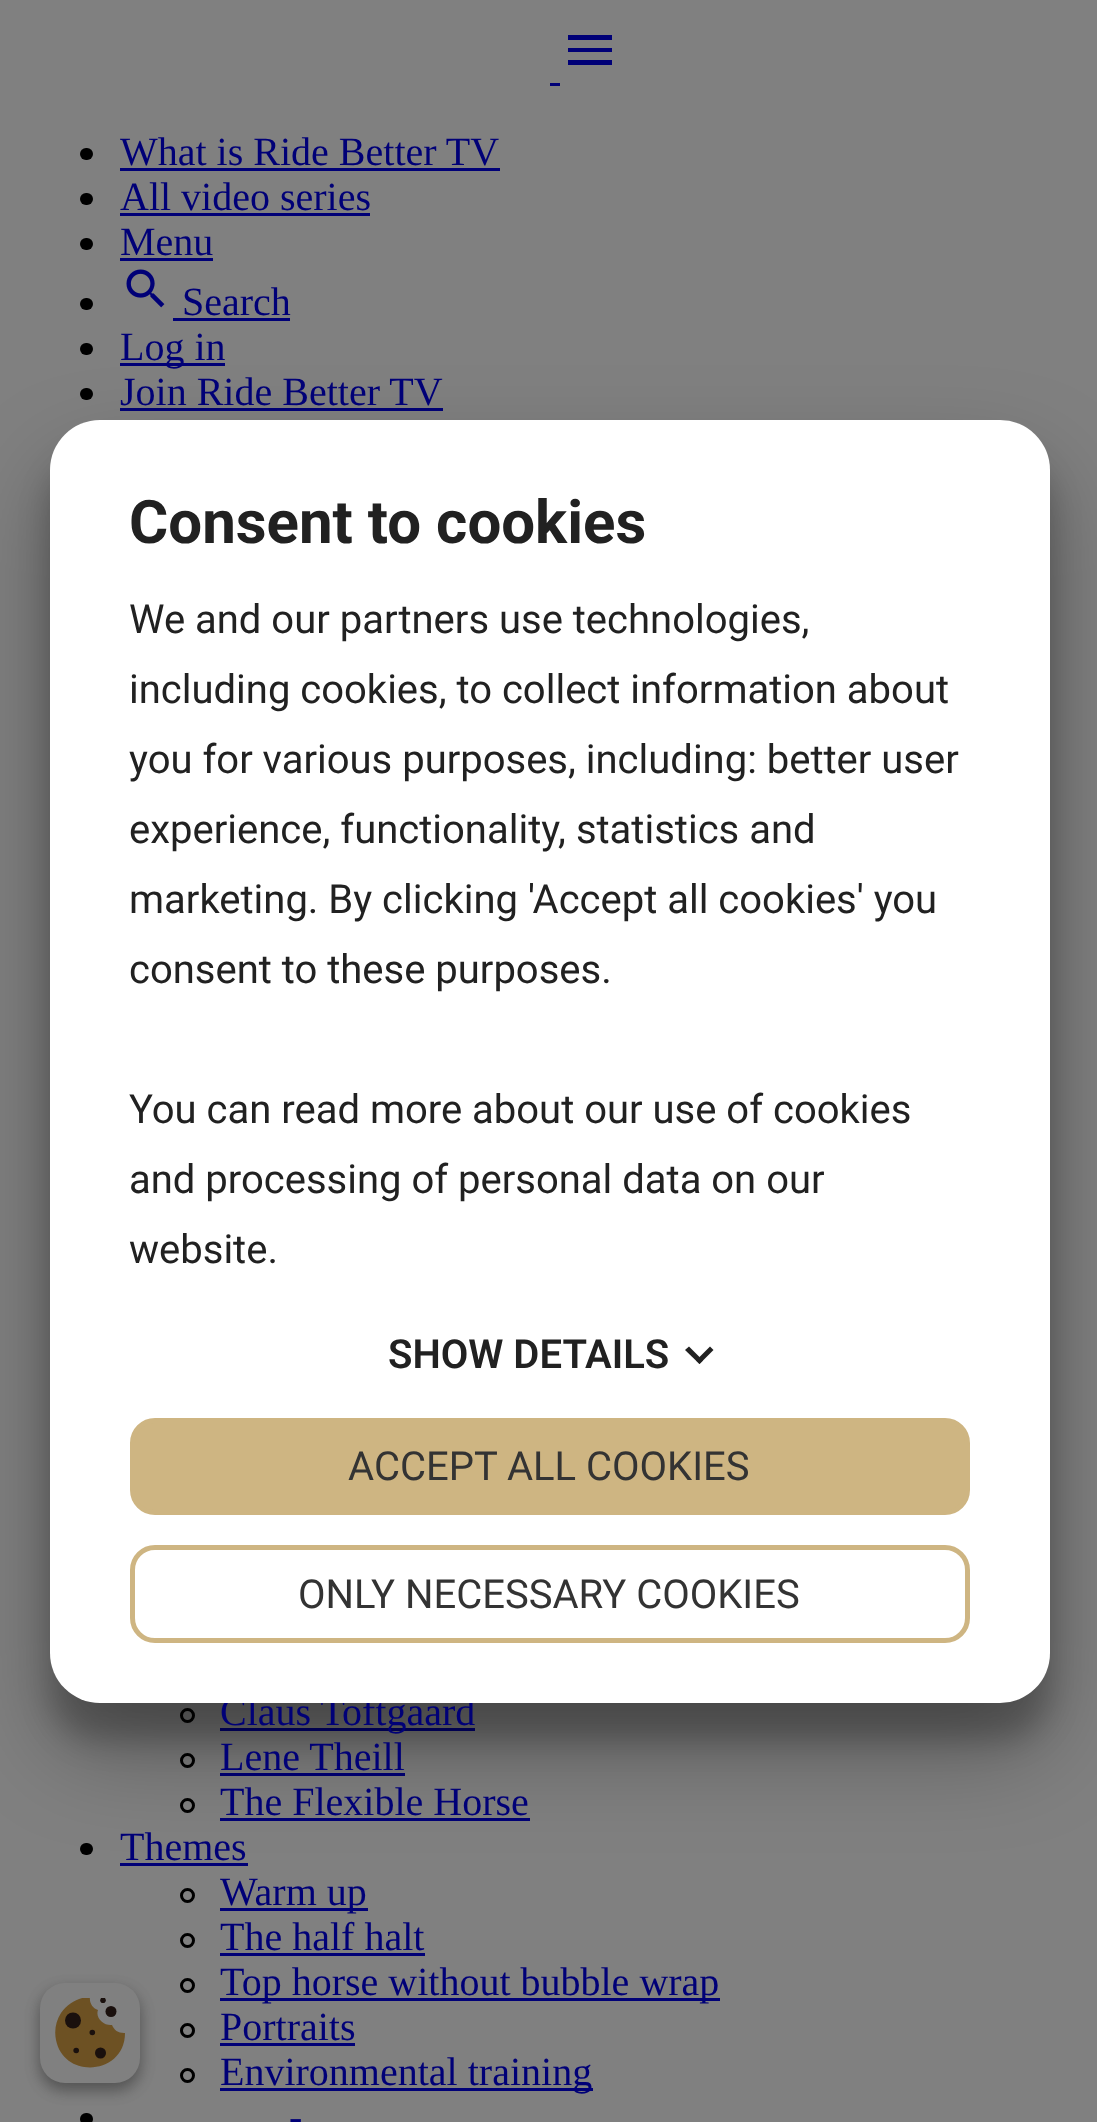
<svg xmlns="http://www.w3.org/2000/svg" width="1097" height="2122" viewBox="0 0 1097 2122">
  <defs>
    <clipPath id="clip1"><path d="M55 1998h70v70H55z"/></clipPath>
  </defs>
  <rect width="100%" height="100%" fill="#808080"/>
  <path d="M568 35H612V40H568ZM568 52V48H612V52ZM568 65V60H612V65Z" fill="#007"/>
  <path d="M550 83h10v3H550z" fill="#007"/>
  <rect x="80" y="148" width="13" height="12" rx="6" fill="#000"/>
  <path d="M120 168h380v3H120z" fill="#007"/>
  <rect x="80" y="193" width="13" height="12" rx="6" fill="#000"/>
  <path d="M120 213h250v3H120z" fill="#007"/>
  <rect x="80" y="238" width="13" height="12" rx="6" fill="#000"/>
  <path d="M120 258h93v3H120z" fill="#007"/>
  <rect x="80" y="298" width="13" height="12" rx="6" fill="#000"/>
  <image x="126" y="269" width="39" height="39" href="img/1.png"/>
  <path d="M173 318h117v3H173z" fill="#007"/>
  <rect x="80" y="343" width="13" height="12" rx="6" fill="#000"/>
  <path d="M120 363h105v3H120z" fill="#007"/>
  <rect x="80" y="388" width="13" height="12" rx="6" fill="#000"/>
  <path d="M120 408h323v3H120z" fill="#007"/>
  <circle cx="187.5" cy="1715.5" r="6" fill="none" stroke="#000" stroke-width="3"/>
  <path d="M220 1728h255v3H220z" fill="#007"/>
  <circle cx="187.5" cy="1760.5" r="6" fill="none" stroke="#000" stroke-width="3"/>
  <path d="M220 1773h185v3H220z" fill="#007"/>
  <circle cx="187.5" cy="1805.5" r="6" fill="none" stroke="#000" stroke-width="3"/>
  <path d="M220 1818h310v3H220z" fill="#007"/>
  <rect x="80" y="1843" width="13" height="12" rx="6" fill="#000"/>
  <path d="M120 1863h128v3H120z" fill="#007"/>
  <circle cx="187.5" cy="1895.5" r="6" fill="none" stroke="#000" stroke-width="3"/>
  <path d="M220 1908h148v3H220z" fill="#007"/>
  <circle cx="187.5" cy="1940.5" r="6" fill="none" stroke="#000" stroke-width="3"/>
  <path d="M220 1953h205v3H220z" fill="#007"/>
  <circle cx="187.5" cy="1985.5" r="6" fill="none" stroke="#000" stroke-width="3"/>
  <path d="M220 1998h500v3H220z" fill="#007"/>
  <circle cx="187.5" cy="2030.5" r="6" fill="none" stroke="#000" stroke-width="3"/>
  <path d="M220 2043h135v3H220z" fill="#007"/>
  <circle cx="187.5" cy="2075.5" r="6" fill="none" stroke="#000" stroke-width="3"/>
  <path d="M220 2088h373v3H220z" fill="#007"/>
  <rect x="80" y="2113" width="13" height="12" rx="6" fill="#000"/>
  <rect x="50" y="458" width="1000" height="1282" rx="50" fill="#00000038" filter="blur(15px)"/>
  <rect x="50" y="468" width="1000" height="1282" rx="50" fill="#0000004d" filter="blur(47.5px)"/>
  <rect x="40" y="1990" width="100" height="100" rx="25" fill="#0000003b" filter="blur(7.5px)"/>
  <rect x="40" y="1990" width="100" height="100" rx="25" fill="#00000029" filter="blur(7.5px)"/>
  <rect x="40" y="1983" width="100" height="100" rx="25" fill="#808080"/>
  <g clip-path="url(#clip1)">
    <path d="M124 2033C118 2033 114 2030 112 2025C104 2026 95 2018 98 2010C93 2009 89 2003 90 1997C79 1997 68 2003 61 2013C56 2021 54 2030 56 2040C64 2080 125 2075 125 2033Z" fill="#6d5123"/>
  </g>
  <circle cx="111" cy="2011.5" r="5.5" fill="#1a100d"/>
  <circle cx="100.5" cy="2053" r="5.5" fill="#1a100d"/>
  <circle cx="73" cy="2020.5" r="8" fill="#1a100d"/>
  <g clip-path="url(#clip1)">
    <circle cx="103" cy="2000.3" r="2.8" fill="#1a100d"/>
  </g>
  <circle cx="92.3" cy="2032.5" r="2.8" fill="#1a100d"/>
  <circle cx="76.2" cy="2050.5" r="2.8" fill="#1a100d"/>
  <g font-family="Liberation Serif" font-size="40" fill="#007">
    <text x="120" y="165">What is Ride Better TV</text>
    <text x="120" y="210">All video series</text>
    <text x="120" y="255">Menu</text>
    <text x="182" y="315">Search</text>
    <text x="120" y="360">Log in</text>
    <text x="120" y="405">Join Ride Better TV</text>
    <text x="220" y="1725">Claus Toftgaard</text>
    <text x="220" y="1770">Lene Theill</text>
    <text x="220" y="1815">The Flexible Horse</text>
    <text x="120" y="1860">Themes</text>
    <text x="220" y="1905">Warm up</text>
    <text x="220" y="1950">The half halt</text>
    <text x="220" y="1995">Top horse without bubble wrap</text>
    <text x="220" y="2040">Portraits</text>
    <text x="220" y="2085">Environmental training</text>
    <text x="289" y="2130">-</text>
  </g>
  <rect x="50" y="420" width="1000" height="1283" rx="50" fill="#fff"/>
  <text x="129" y="543" font-family="Roboto" font-size="60" font-weight="bold" fill="#212121">Consent to cookies</text>
  <g font-family="Roboto" font-size="40" fill="#212121">
    <text x="129" y="633">We and our partners use technologies,</text>
    <text x="129" y="703">including cookies, to collect information about</text>
    <text x="129" y="773">you for various purposes, including: better user</text>
    <text x="129" y="843">experience, functionality, statistics and</text>
    <text x="129" y="913">marketing. By clicking 'Accept all cookies' you</text>
    <text x="129" y="983">consent to these purposes.</text>
    <text x="129" y="1123">You can read more about our use of cookies</text>
    <text x="129" y="1193">and processing of personal data on our</text>
    <text x="129" y="1263">website.</text>
  </g>
  <text x="388" y="1368" font-family="Roboto" font-size="40" font-weight="600" fill="#212121">SHOW DETAILS</text>
  <path d="M710 1346.5L713.5 1350L699.5 1364L696 1360.5Z" fill="#212121"/>
  <path d="M689 1346.5L703 1360.5L699.5 1364L685 1350Z" fill="#212121"/>
  <rect x="132.5" y="1420.5" width="835" height="92" rx="22.5" fill="#ceb582" stroke="#ceb582" stroke-width="5"/>
  <text x="348" y="1480" font-family="Roboto" font-size="40" fill="#333">ACCEPT ALL COOKIES</text>
  <rect x="132.5" y="1547.5" width="835" height="93" rx="22.5" fill="none" stroke="#ceb582" stroke-width="5"/>
  <text x="298" y="1608" font-family="Roboto" font-size="40" fill="#333">ONLY NECESSARY COOKIES</text>
</svg>
